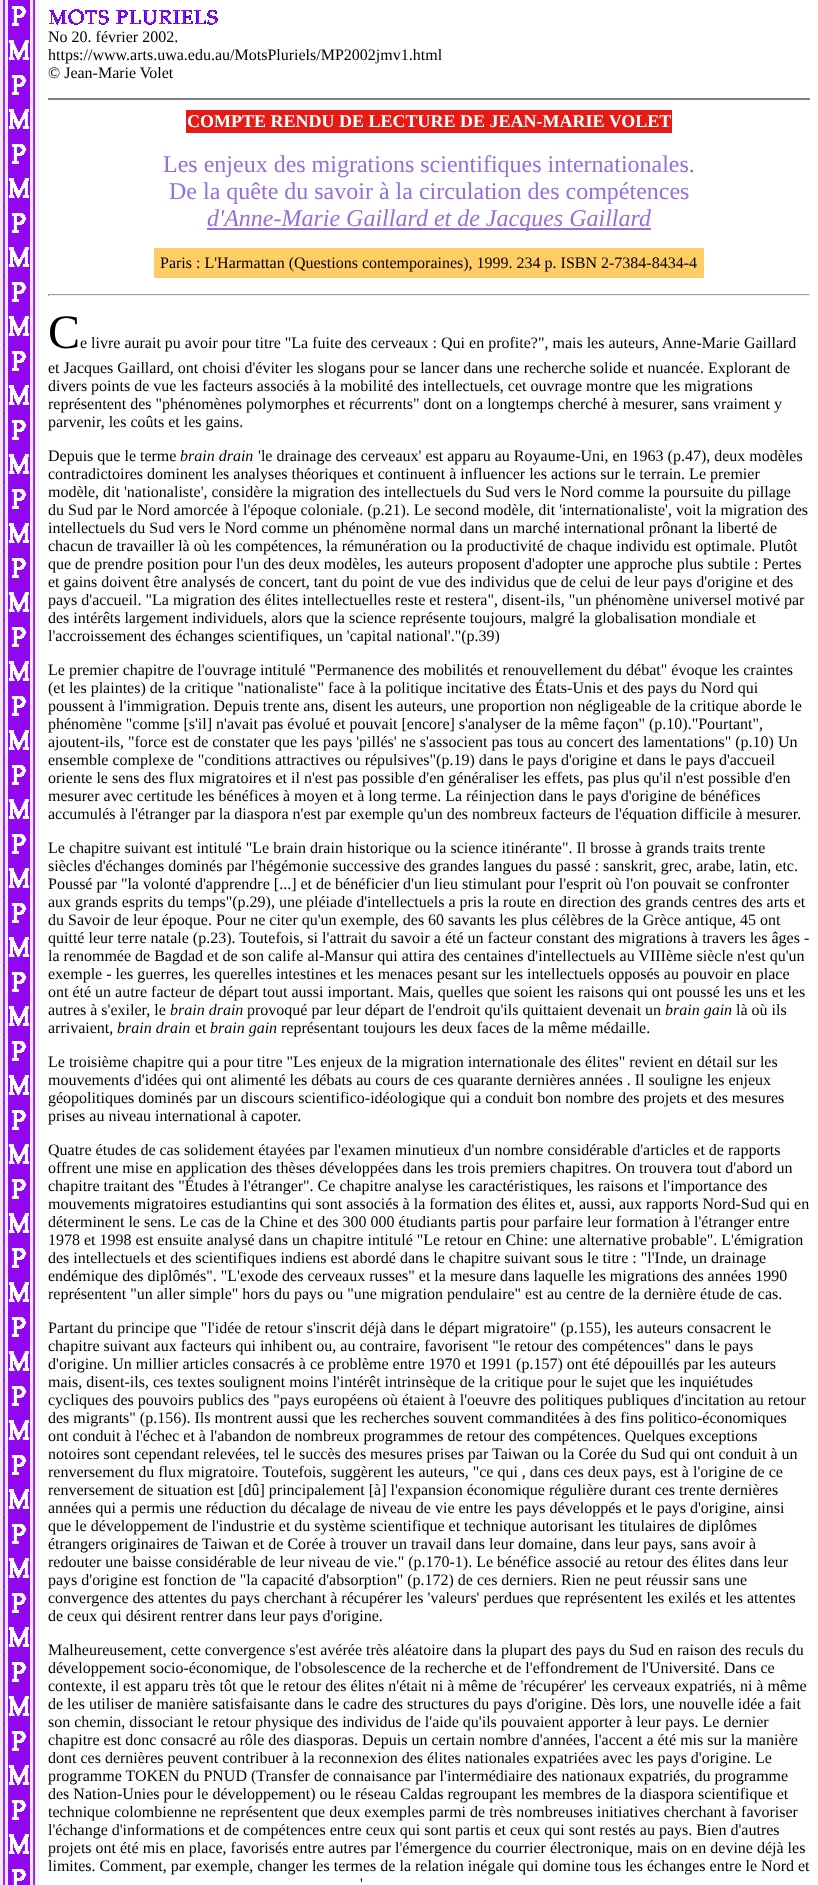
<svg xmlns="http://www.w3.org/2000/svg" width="818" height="1885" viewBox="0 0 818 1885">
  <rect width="100%" height="100%" fill="#fff"/>
  <image x="0" y="0" width="39" height="1885" href="img/1.png"/>
  <image x="49" y="9" width="169" height="16" href="img/2.png"/>
  <path d="M48 98h762v2H48z" fill="#808080"/>
  <path d="M186 110h486v23H186z" fill="#e41b17"/>
  <path d="M207 228h444v2H207z" fill="#9370db"/>
  <path d="M154 248h550v30H154z" fill="#fc6"/>
  <path d="M48 294h762v1H48z" fill="#9f9f9f"/>
  <path d="M809 294h1v2H809z" fill="#eee"/>
  <path d="M48 295h762v1H48z" fill="#eee"/>
  <path d="M48 294h1v2H48z" fill="#9f9f9f"/>
  <g font-family="Liberation Serif" font-size="16" fill="#000">
    <text x="48" y="42">No 20. février 2002.</text>
    <text x="48" y="60">https://www.arts.uwa.edu.au/MotsPluriels/MP2002jmv1.html</text>
    <text x="48" y="78">© Jean-Marie Volet</text>
  </g>
  <text x="187" y="127" font-family="Liberation Serif" font-size="18" font-weight="bold" fill="#fff">COMPTE RENDU DE LECTURE DE JEAN-MARIE VOLET</text>
  <g font-family="Liberation Serif" font-size="24" fill="#9370db">
    <text x="163" y="172">Les enjeux des migrations scientifiques internationales.</text>
    <text x="169" y="199">De la quête du savoir à la circulation des compétences</text>
  </g>
  <text x="207" y="226" font-family="Liberation Serif" font-size="24" font-style="italic" fill="#9370db">d'Anne-Marie Gaillard et de Jacques Gaillard</text>
  <text x="160" y="268" font-family="Liberation Serif" font-size="16" fill="#000">Paris : L'Harmattan (Questions contemporaines), 1999. 234 p. ISBN 2-7384-8434-4</text>
  <text x="48" y="348" font-family="Liberation Serif" font-size="48" fill="#000">C</text>
  <g font-family="Liberation Serif" font-size="16" fill="#000">
    <text x="80" y="348">e livre aurait pu avoir pour titre "La fuite des cerveaux : Qui en profite?", mais les auteurs, Anne-Marie Gaillard</text>
    <text x="48" y="373">et Jacques Gaillard, ont choisi d'éviter les slogans pour se lancer dans une recherche solide et nuancée. Explorant de</text>
    <text x="48" y="391">divers points de vue les facteurs associés à la mobilité des intellectuels, cet ouvrage montre que les migrations</text>
    <text x="48" y="409">représentent des "phénomènes polymorphes et récurrents" dont on a longtemps cherché à mesurer, sans vraiment y</text>
    <text x="48" y="427">parvenir, les coûts et les gains.</text>
    <text x="48" y="461">Depuis que le terme</text>
  </g>
  <text x="180" y="461" font-family="Liberation Serif" font-size="16" font-style="italic" fill="#000">brain drain</text>
  <g font-family="Liberation Serif" font-size="16" fill="#000">
    <text x="258" y="461">'le drainage des cerveaux' est apparu au Royaume-Uni, en 1963 (p.47), deux modèles</text>
    <text x="48" y="479">contradictoires dominent les analyses théoriques et continuent à influencer les actions sur le terrain. Le premier</text>
    <text x="48" y="497">modèle, dit 'nationaliste', considère la migration des intellectuels du Sud vers le Nord comme la poursuite du pillage</text>
    <text x="48" y="515">du Sud par le Nord amorcée à l'époque coloniale. (p.21). Le second modèle, dit 'internationaliste', voit la migration des</text>
    <text x="48" y="533">intellectuels du Sud vers le Nord comme un phénomène normal dans un marché international prônant la liberté de</text>
    <text x="48" y="551">chacun de travailler là où les compétences, la rémunération ou la productivité de chaque individu est optimale. Plutôt</text>
    <text x="48" y="569">que de prendre position pour l'un des deux modèles, les auteurs proposent d'adopter une approche plus subtile : Pertes</text>
    <text x="48" y="587">et gains doivent être analysés de concert, tant du point de vue des individus que de celui de leur pays d'origine et des</text>
    <text x="48" y="605">pays d'accueil. "La migration des élites intellectuelles reste et restera", disent-ils, "un phénomène universel motivé par</text>
    <text x="48" y="623">des intérêts largement individuels, alors que la science représente toujours, malgré la globalisation mondiale et</text>
    <text x="48" y="641">l'accroissement des échanges scientifiques, un 'capital national'."(p.39)</text>
    <text x="48" y="675">Le premier chapitre de l'ouvrage intitulé "Permanence des mobilités et renouvellement du débat" évoque les craintes</text>
    <text x="48" y="693">(et les plaintes) de la critique "nationaliste" face à la politique incitative des États-Unis et des pays du Nord qui</text>
    <text x="48" y="711">poussent à l'immigration. Depuis trente ans, disent les auteurs, une proportion non négligeable de la critique aborde le</text>
    <text x="48" y="729">phénomène "comme [s'il] n'avait pas évolué et pouvait [encore] s'analyser de la même façon" (p.10)."Pourtant",</text>
    <text x="48" y="747">ajoutent-ils, "force est de constater que les pays 'pillés' ne s'associent pas tous au concert des lamentations" (p.10) Un</text>
    <text x="48" y="765">ensemble complexe de "conditions attractives ou répulsives"(p.19) dans le pays d'origine et dans le pays d'accueil</text>
    <text x="48" y="783">oriente le sens des flux migratoires et il n'est pas possible d'en généraliser les effets, pas plus qu'il n'est possible d'en</text>
    <text x="48" y="801">mesurer avec certitude les bénéfices à moyen et à long terme. La réinjection dans le pays d'origine de bénéfices</text>
    <text x="48" y="819">accumulés à l'étranger par la diaspora n'est par exemple qu'un des nombreux facteurs de l'équation difficile à mesurer.</text>
    <text x="48" y="853">Le chapitre suivant est intitulé "Le brain drain historique ou la science itinérante". Il brosse à grands traits trente</text>
    <text x="48" y="871">siècles d'échanges dominés par l'hégémonie successive des grandes langues du passé : sanskrit, grec, arabe, latin, etc.</text>
    <text x="48" y="889">Poussé par "la volonté d'apprendre [...] et de bénéficier d'un lieu stimulant pour l'esprit où l'on pouvait se confronter</text>
    <text x="48" y="907">aux grands esprits du temps"(p.29), une pléiade d'intellectuels a pris la route en direction des grands centres des arts et</text>
    <text x="48" y="925">du Savoir de leur époque. Pour ne citer qu'un exemple, des 60 savants les plus célèbres de la Grèce antique, 45 ont</text>
    <text x="48" y="943">quitté leur terre natale (p.23). Toutefois, si l'attrait du savoir a été un facteur constant des migrations à travers les âges -</text>
    <text x="48" y="961">la renommée de Bagdad et de son calife al-Mansur qui attira des centaines d'intellectuels au VIIIème siècle n'est qu'un</text>
    <text x="48" y="979">exemple - les guerres, les querelles intestines et les menaces pesant sur les intellectuels opposés au pouvoir en place</text>
    <text x="48" y="997">ont été un autre facteur de départ tout aussi important. Mais, quelles que soient les raisons qui ont poussé les uns et les</text>
    <text x="48" y="1015">autres à s'exiler, le</text>
  </g>
  <text x="170" y="1015" font-family="Liberation Serif" font-size="16" font-style="italic" fill="#000">brain drain</text>
  <text x="247" y="1015" font-family="Liberation Serif" font-size="16" fill="#000">provoqué par leur départ de l'endroit qu'ils quittaient devenait un</text>
  <text x="665" y="1015" font-family="Liberation Serif" font-size="16" font-style="italic" fill="#000">brain gain</text>
  <g font-family="Liberation Serif" font-size="16" fill="#000">
    <text x="736" y="1015">là où ils</text>
    <text x="48" y="1033">arrivaient,</text>
  </g>
  <text x="117" y="1033" font-family="Liberation Serif" font-size="16" font-style="italic" fill="#000">brain drain</text>
  <text x="195" y="1033" font-family="Liberation Serif" font-size="16" fill="#000">et</text>
  <text x="210" y="1033" font-family="Liberation Serif" font-size="16" font-style="italic" fill="#000">brain gain</text>
  <g font-family="Liberation Serif" font-size="16" fill="#000">
    <text x="281" y="1033">représentant toujours les deux faces de la même médaille.</text>
    <text x="48" y="1067">Le troisième chapitre qui a pour titre "Les enjeux de la migration internationale des élites" revient en détail sur les</text>
    <text x="48" y="1085">mouvements d'idées qui ont alimenté les débats au cours de ces quarante dernières années . Il souligne les enjeux</text>
    <text x="48" y="1103">géopolitiques dominés par un discours scientifico-idéologique qui a conduit bon nombre des projets et des mesures</text>
    <text x="48" y="1121">prises au niveau international à capoter.</text>
    <text x="48" y="1155">Quatre études de cas solidement étayées par l'examen minutieux d'un nombre considérable d'articles et de rapports</text>
    <text x="48" y="1173">offrent une mise en application des thèses développées dans les trois premiers chapitres. On trouvera tout d'abord un</text>
    <text x="48" y="1191">chapitre traitant des "Études à l'étranger". Ce chapitre analyse les caractéristiques, les raisons et l'importance des</text>
    <text x="48" y="1209">mouvements migratoires estudiantins qui sont associés à la formation des élites et, aussi, aux rapports Nord-Sud qui en</text>
    <text x="48" y="1227">déterminent le sens. Le cas de la Chine et des 300 000 étudiants partis pour parfaire leur formation à l'étranger entre</text>
    <text x="48" y="1245">1978 et 1998 est ensuite analysé dans un chapitre intitulé "Le retour en Chine: une alternative probable". L'émigration</text>
    <text x="48" y="1263">des intellectuels et des scientifiques indiens est abordé dans le chapitre suivant sous le titre : "l'Inde, un drainage</text>
    <text x="48" y="1281">endémique des diplômés". "L'exode des cerveaux russes" et la mesure dans laquelle les migrations des années 1990</text>
    <text x="48" y="1299">représentent "un aller simple" hors du pays ou "une migration pendulaire" est au centre de la dernière étude de cas.</text>
    <text x="48" y="1333">Partant du principe que "l'idée de retour s'inscrit déjà dans le départ migratoire" (p.155), les auteurs consacrent le</text>
    <text x="48" y="1351">chapitre suivant aux facteurs qui inhibent ou, au contraire, favorisent "le retour des compétences" dans le pays</text>
    <text x="48" y="1369">d'origine. Un millier articles consacrés à ce problème entre 1970 et 1991 (p.157) ont été dépouillés par les auteurs</text>
    <text x="48" y="1387">mais, disent-ils, ces textes soulignent moins l'intérêt intrinsèque de la critique pour le sujet que les inquiétudes</text>
    <text x="48" y="1405">cycliques des pouvoirs publics des "pays européens où étaient à l'oeuvre des politiques publiques d'incitation au retour</text>
    <text x="48" y="1423">des migrants" (p.156). Ils montrent aussi que les recherches souvent commanditées à des fins politico-économiques</text>
    <text x="48" y="1441">ont conduit à l'échec et à l'abandon de nombreux programmes de retour des compétences. Quelques exceptions</text>
    <text x="48" y="1459">notoires sont cependant relevées, tel le succès des mesures prises par Taiwan ou la Corée du Sud qui ont conduit à un</text>
    <text x="48" y="1477">renversement du flux migratoire. Toutefois, suggèrent les auteurs, "ce qui , dans ces deux pays, est à l'origine de ce</text>
    <text x="48" y="1495">renversement de situation est [dû] principalement [à] l'expansion économique régulière durant ces trente dernières</text>
    <text x="48" y="1513">années qui a permis une réduction du décalage de niveau de vie entre les pays développés et le pays d'origine, ainsi</text>
    <text x="48" y="1531">que le développement de l'industrie et du système scientifique et technique autorisant les titulaires de diplômes</text>
    <text x="48" y="1549">étrangers originaires de Taiwan et de Corée à trouver un travail dans leur domaine, dans leur pays, sans avoir à</text>
    <text x="48" y="1567">redouter une baisse considérable de leur niveau de vie." (p.170-1). Le bénéfice associé au retour des élites dans leur</text>
    <text x="48" y="1585">pays d'origine est fonction de "la capacité d'absorption" (p.172) de ces derniers. Rien ne peut réussir sans une</text>
    <text x="48" y="1603">convergence des attentes du pays cherchant à récupérer les 'valeurs' perdues que représentent les exilés et les attentes</text>
    <text x="48" y="1621">de ceux qui désirent rentrer dans leur pays d'origine.</text>
    <text x="48" y="1655">Malheureusement, cette convergence s'est avérée très aléatoire dans la plupart des pays du Sud en raison des reculs du</text>
    <text x="48" y="1673">développement socio-économique, de l'obsolescence de la recherche et de l'effondrement de l'Université. Dans ce</text>
    <text x="48" y="1691">contexte, il est apparu très tôt que le retour des élites n'était ni à même de 'récupérer' les cerveaux expatriés, ni à même</text>
    <text x="48" y="1709">de les utiliser de manière satisfaisante dans le cadre des structures du pays d'origine. Dès lors, une nouvelle idée a fait</text>
    <text x="48" y="1727">son chemin, dissociant le retour physique des individus de l'aide qu'ils pouvaient apporter à leur pays. Le dernier</text>
    <text x="48" y="1745">chapitre est donc consacré au rôle des diasporas. Depuis un certain nombre d'années, l'accent a été mis sur la manière</text>
    <text x="48" y="1763">dont ces dernières peuvent contribuer à la reconnexion des élites nationales expatriées avec les pays d'origine. Le</text>
    <text x="48" y="1781">programme TOKEN du PNUD (Transfer de connaisance par l'intermédiaire des nationaux expatriés, du programme</text>
    <text x="48" y="1799">des Nation-Unies pour le développement) ou le réseau Caldas regroupant les membres de la diaspora scientifique et</text>
    <text x="48" y="1817">technique colombienne ne représentent que deux exemples parmi de très nombreuses initiatives cherchant à favoriser</text>
    <text x="48" y="1835">l'échange d'informations et de compétences entre ceux qui sont partis et ceux qui sont restés au pays. Bien d'autres</text>
    <text x="48" y="1853">projets ont été mis en place, favorisés entre autres par l'émergence du courrier électronique, mais on en devine déjà les</text>
    <text x="48" y="1871">limites. Comment, par exemple, changer les termes de la relation inégale qui domine tous les échanges entre le Nord et</text>
    <text x="360" y="1889">'</text>
  </g>
</svg>
